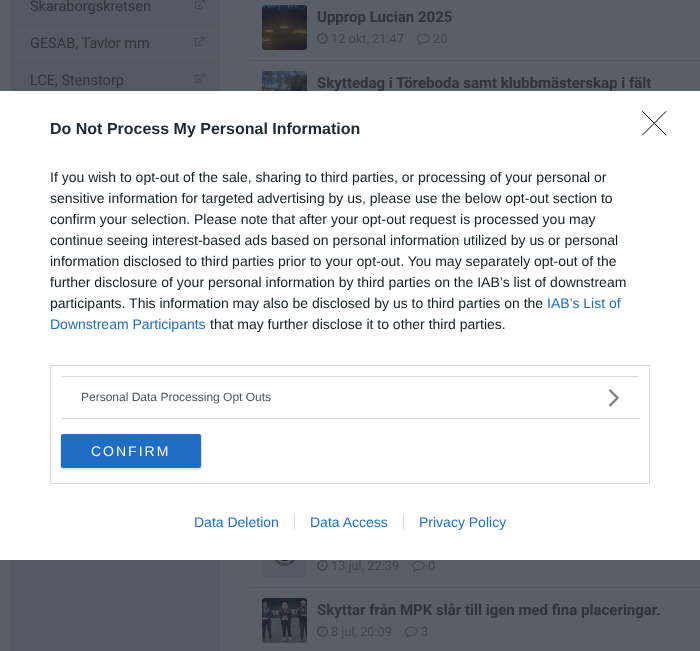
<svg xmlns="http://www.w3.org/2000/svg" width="700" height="651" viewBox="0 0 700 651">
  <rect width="100%" height="100%" fill="#595f67"/>
  <path d="M10 0h210v651H10z" fill="#545a63"/>
  <path d="M10 25h210v1H10z" fill="#50565e"/>
  <image x="195" y="0" width="10" height="9" href="img/1.png"/>
  <path d="M10 62h210v1H10z" fill="#50565e"/>
  <image x="195" y="37" width="10" height="9" href="img/1.png"/>
  <image x="195" y="74" width="10" height="9" href="img/1.png"/>
  <image x="262" y="5" width="45" height="45" href="img/2.png"/>
  <image x="317" y="33" width="11" height="11" href="img/3.png"/>
  <image x="417" y="33" width="13" height="12" href="img/4.png"/>
  <path d="M250 60h450v1H250z" fill="#50565e"/>
  <image x="262" y="71" width="45" height="20" href="img/5.png"/>
  <rect x="262" y="532" width="45" height="45" rx="3" fill="#545a63"/>
  <image x="274" y="560" width="21" height="6" href="img/6.png"/>
  <image x="317" y="560" width="11" height="11" href="img/3.png"/>
  <image x="412" y="560" width="13" height="12" href="img/4.png"/>
  <path d="M250 587h450v1H250z" fill="#50565e"/>
  <image x="262" y="598" width="45" height="45" href="img/7.png"/>
  <image x="317" y="626" width="11" height="11" href="img/3.png"/>
  <image x="405" y="626" width="13" height="12" href="img/4.png"/>
  <g font-family="Roboto" font-size="14.5" fill="#2e343c">
    <text x="30" y="11">Skaraborgskretsen</text>
    <text x="30" y="48">GESAB, Tavlor mm</text>
    <text x="30" y="85">LCE, Stenstorp</text>
  </g>
  <text x="317" y="22" font-family="Roboto" font-size="15" font-weight="bold" fill="#2e343c">Upprop Lucian 2025</text>
  <g font-family="Roboto" font-size="12.75" fill="#3f454d">
    <text x="331" y="43">12 okt, 21:47</text>
    <text x="433" y="43">20</text>
  </g>
  <text x="317" y="88" font-family="Roboto" font-size="15" font-weight="bold" fill="#2e343c">Skyttedag i Töreboda samt klubbmästerskap i fält</text>
  <g font-family="Roboto" font-size="12.75" fill="#3f454d">
    <text x="331" y="570">13 jul, 22:39</text>
    <text x="428" y="570">0</text>
  </g>
  <text x="317" y="615" font-family="Roboto" font-size="15" font-weight="bold" fill="#2e343c">Skyttar från MPK slår till igen med fina placeringar.</text>
  <g font-family="Roboto" font-size="12.75" fill="#3f454d">
    <text x="331" y="636">8 jul, 20:09</text>
    <text x="421" y="636">3</text>
  </g>
  <path d="M0 91h700v469H0z" fill="#fff"/>
  <text x="50" y="134" font-family="Liberation Sans" font-size="16" font-weight="bold" fill="#212934">Do Not Process My Personal Information</text>
  <g font-family="Liberation Sans" font-size="14" fill="#141e23">
    <text x="50" y="182">If you wish to opt-out of the sale, sharing to third parties, or processing of your personal or</text>
    <text x="50" y="203">sensitive information for targeted advertising by us, please use the below opt-out section to</text>
    <text x="50" y="224">confirm your selection. Please note that after your opt-out request is processed you may</text>
    <text x="50" y="245">continue seeing interest-based ads based on personal information utilized by us or personal</text>
    <text x="50" y="266">information disclosed to third parties prior to your opt-out. You may separately opt-out of the</text>
    <text x="50" y="287">further disclosure of your personal information by third parties on the IAB’s list of downstream</text>
    <text x="50" y="308">participants. This information may also be disclosed by us to third parties on the</text>
  </g>
  <g font-family="Liberation Sans" font-size="14" fill="#206dc5">
    <text x="547" y="308">IAB’s List of</text>
    <text x="50" y="329">Downstream Participants</text>
  </g>
  <text x="210" y="329" font-family="Liberation Sans" font-size="14" fill="#141e23">that may further disclose it to other third parties.</text>
  <path d="M50.5 365.5h599v118H50.5z" fill="none" stroke="#d8d8d8"/>
  <path d="M61 376h578v1H61z" fill="#ddd"/>
  <path d="M61 418h578v1H61z" fill="#d8d8d8"/>
  <text x="81" y="401" font-family="Liberation Sans" font-size="12" fill="#4d545d">Personal Data Processing Opt Outs</text>
  <image x="608" y="389" width="11" height="18" href="img/8.png"/>
  <rect x="60" y="434" width="142" height="36" rx="3" fill="#0000001a" filter="blur(0.5px)"/>
  <rect x="61" y="434" width="140" height="34" rx="2" fill="#206dc5"/>
  <text x="91" y="456" font-family="Liberation Sans" font-size="14" letter-spacing="2" fill="#fff">CONFIRM</text>
  <path d="M642.5 111.5L666 135M666 111.5L642.5 135" fill="none" stroke="#000" stroke-linecap="round" stroke-linejoin="round"/>
  <g font-family="Liberation Sans" font-size="14" fill="#206dc5">
    <text x="194" y="527">Data Deletion</text>
    <text x="310" y="527">Data Access</text>
  </g>
  <path d="M294 514h1v16H294z" fill="#d8d8d8"/>
  <text x="419" y="527" font-family="Liberation Sans" font-size="14" fill="#206dc5">Privacy Policy</text>
  <path d="M403 514h1v16H403z" fill="#d8d8d8"/>
</svg>
